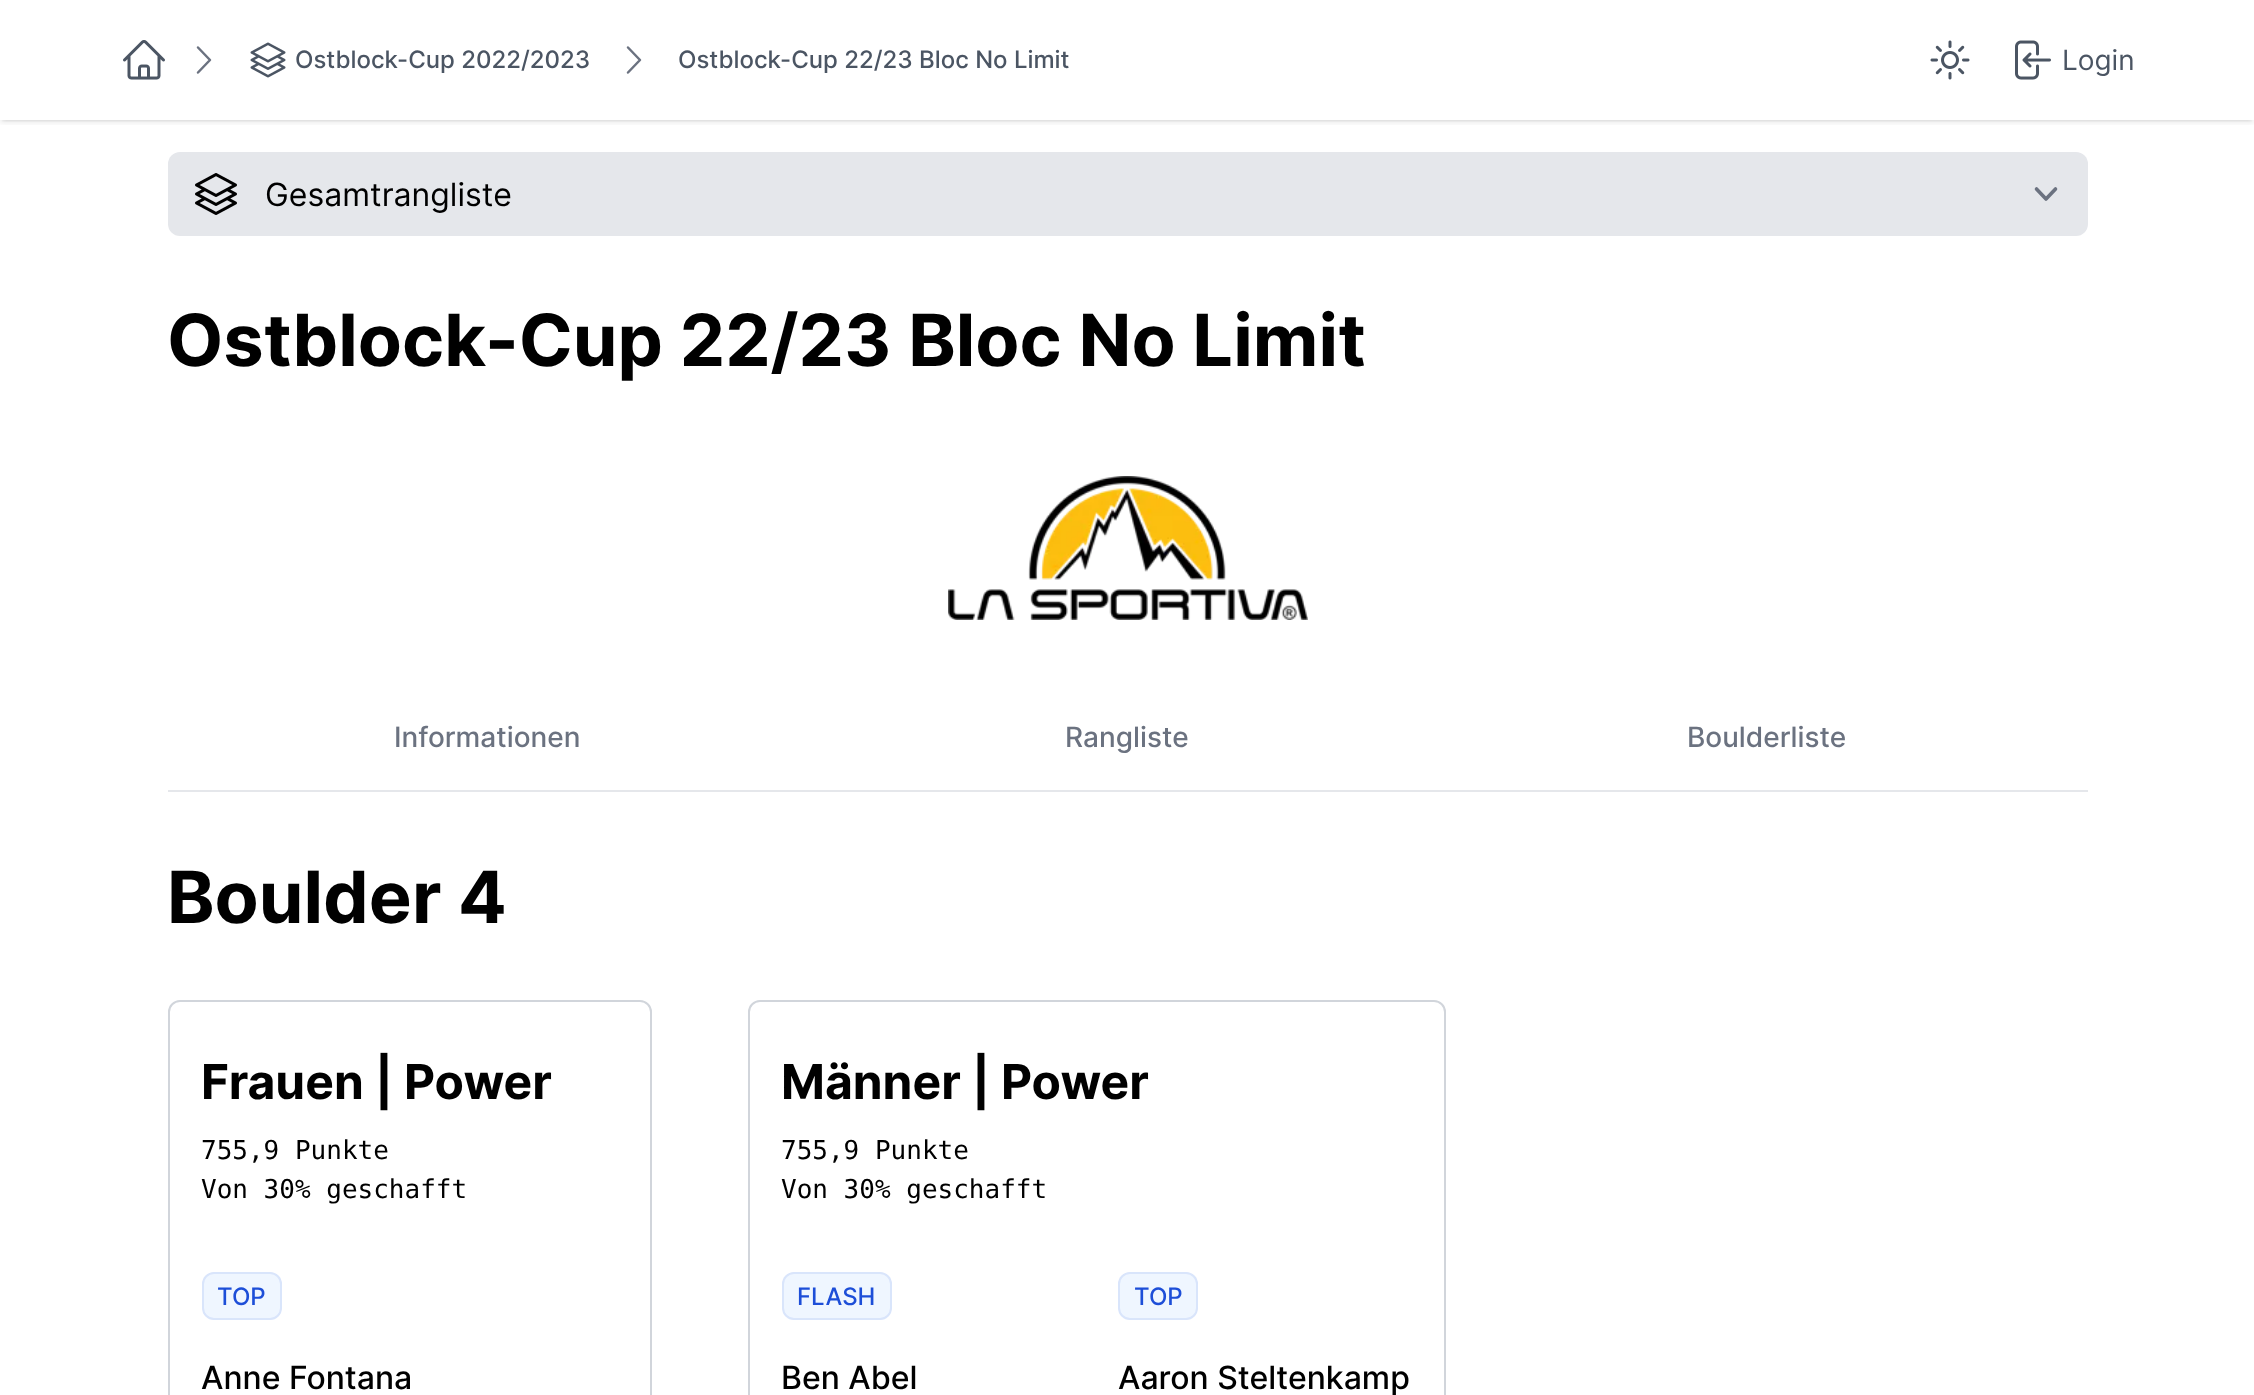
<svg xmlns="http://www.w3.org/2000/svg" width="2254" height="1395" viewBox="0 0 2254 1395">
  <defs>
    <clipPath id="clip1"><path d="M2 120h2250v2H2z"/></clipPath>
    <clipPath id="clip2"><path d="M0 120h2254v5H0z"/></clipPath>
  </defs>
  <rect width="100%" height="100%" fill="#fff"/>
  <g clip-path="url(#clip1)">
    <path d="M2 4h2250v116H2z" fill="#0000001a" filter="blur(2px)"/>
  </g>
  <g clip-path="url(#clip2)">
    <path d="M0 2h2254v120H0z" fill="#0000001a" filter="blur(3px)"/>
  </g>
  <image x="123" y="40" width="42" height="40" href="img/1.png"/>
  <path d="M198 47.5L210 60L198 72.5" fill="none" stroke="#6b7280" stroke-width="2.5" stroke-linecap="round" stroke-linejoin="round"/>
  <image x="250" y="42" width="36" height="36" href="img/2.png"/>
  <path d="M628 47.5L640 60L628 72.5" fill="none" stroke="#6b7280" stroke-width="2.5" stroke-linecap="round" stroke-linejoin="round"/>
  <image x="1930" y="40" width="40" height="40" href="img/3.png"/>
  <image x="2015" y="40" width="36" height="40" href="img/4.png"/>
  <rect x="168" y="152" width="1920" height="84" rx="12" fill="#e5e7eb"/>
  <image x="195" y="173" width="42" height="42" href="img/5.png"/>
  <path d="M2036.5 189L2046 199L2055.5 189" fill="none" stroke="#6b7280" stroke-width="3.6" stroke-linecap="round" stroke-linejoin="round"/>
  <image x="948" y="476" width="360" height="144" href="img/6.png"/>
  <path d="M168 790h1920v2H168z" fill="#e5e7eb"/>
  <rect x="169" y="1001" width="482" height="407" rx="11" fill="none" stroke="#d1d5db" stroke-width="2"/>
  <rect x="202" y="1272" width="80" height="48" rx="12" fill="#eff6ff"/>
  <rect x="203" y="1273" width="78" height="46" rx="11" fill="none" stroke="#1d4ed81a" stroke-width="2"/>
  <rect x="749" y="1001" width="696" height="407" rx="11" fill="none" stroke="#d1d5db" stroke-width="2"/>
  <rect x="782" y="1272" width="110" height="48" rx="12" fill="#eff6ff"/>
  <rect x="783" y="1273" width="108" height="46" rx="11" fill="none" stroke="#1d4ed81a" stroke-width="2"/>
  <rect x="1118" y="1272" width="80" height="48" rx="12" fill="#eff6ff"/>
  <rect x="1119" y="1273" width="78" height="46" rx="11" fill="none" stroke="#1d4ed81a" stroke-width="2"/>
  <g font-family="Inter" font-size="24" font-weight="500" fill="#4b5563">
    <text x="295" y="68">Ostblock-Cup 2022/2023</text>
    <text x="678" y="68">Ostblock-Cup 22/23 Bloc No Limit</text>
  </g>
  <text x="2062" y="70" font-family="Inter" font-size="28" fill="#4b5563">Login</text>
  <text x="265" y="206" font-family="Inter" font-size="32" fill="#000">Gesamtrangliste</text>
  <text x="167" y="366" font-family="Inter" font-size="72" font-weight="bold" fill="#000">Ostblock-Cup 22/23 Bloc No Limit</text>
  <g font-family="Inter" font-size="28" font-weight="500" fill="#6b7280">
    <text x="394" y="747">Informationen</text>
    <text x="1065" y="747">Rangliste</text>
    <text x="1687" y="747">Boulderliste</text>
  </g>
  <text x="167" y="923" font-family="Inter" font-size="72" font-weight="bold" fill="#000">Boulder 4</text>
  <text x="201" y="1099" font-family="Inter" font-size="48" font-weight="bold" fill="#000">Frauen | Power</text>
  <g font-family="DejaVu Sans Mono" font-size="26" fill="#000">
    <text x="201" y="1159">755,9 Punkte</text>
    <text x="201" y="1198">Von 30% geschafft</text>
  </g>
  <text x="217" y="1305" font-family="Inter" font-size="24" font-weight="500" fill="#1d4ed8">TOP</text>
  <text x="201" y="1389" font-family="Inter" font-size="32" font-weight="500" fill="#000">Anne Fontana</text>
  <text x="781" y="1099" font-family="Inter" font-size="48" font-weight="bold" fill="#000">Männer | Power</text>
  <g font-family="DejaVu Sans Mono" font-size="26" fill="#000">
    <text x="781" y="1159">755,9 Punkte</text>
    <text x="781" y="1198">Von 30% geschafft</text>
  </g>
  <text x="797" y="1305" font-family="Inter" font-size="24" font-weight="500" fill="#1d4ed8">FLASH</text>
  <text x="781" y="1389" font-family="Inter" font-size="32" font-weight="500" fill="#000">Ben Abel</text>
  <text x="1134" y="1305" font-family="Inter" font-size="24" font-weight="500" fill="#1d4ed8">TOP</text>
  <text x="1118" y="1389" font-family="Inter" font-size="32" font-weight="500" fill="#000">Aaron Steltenkamp</text>
</svg>
